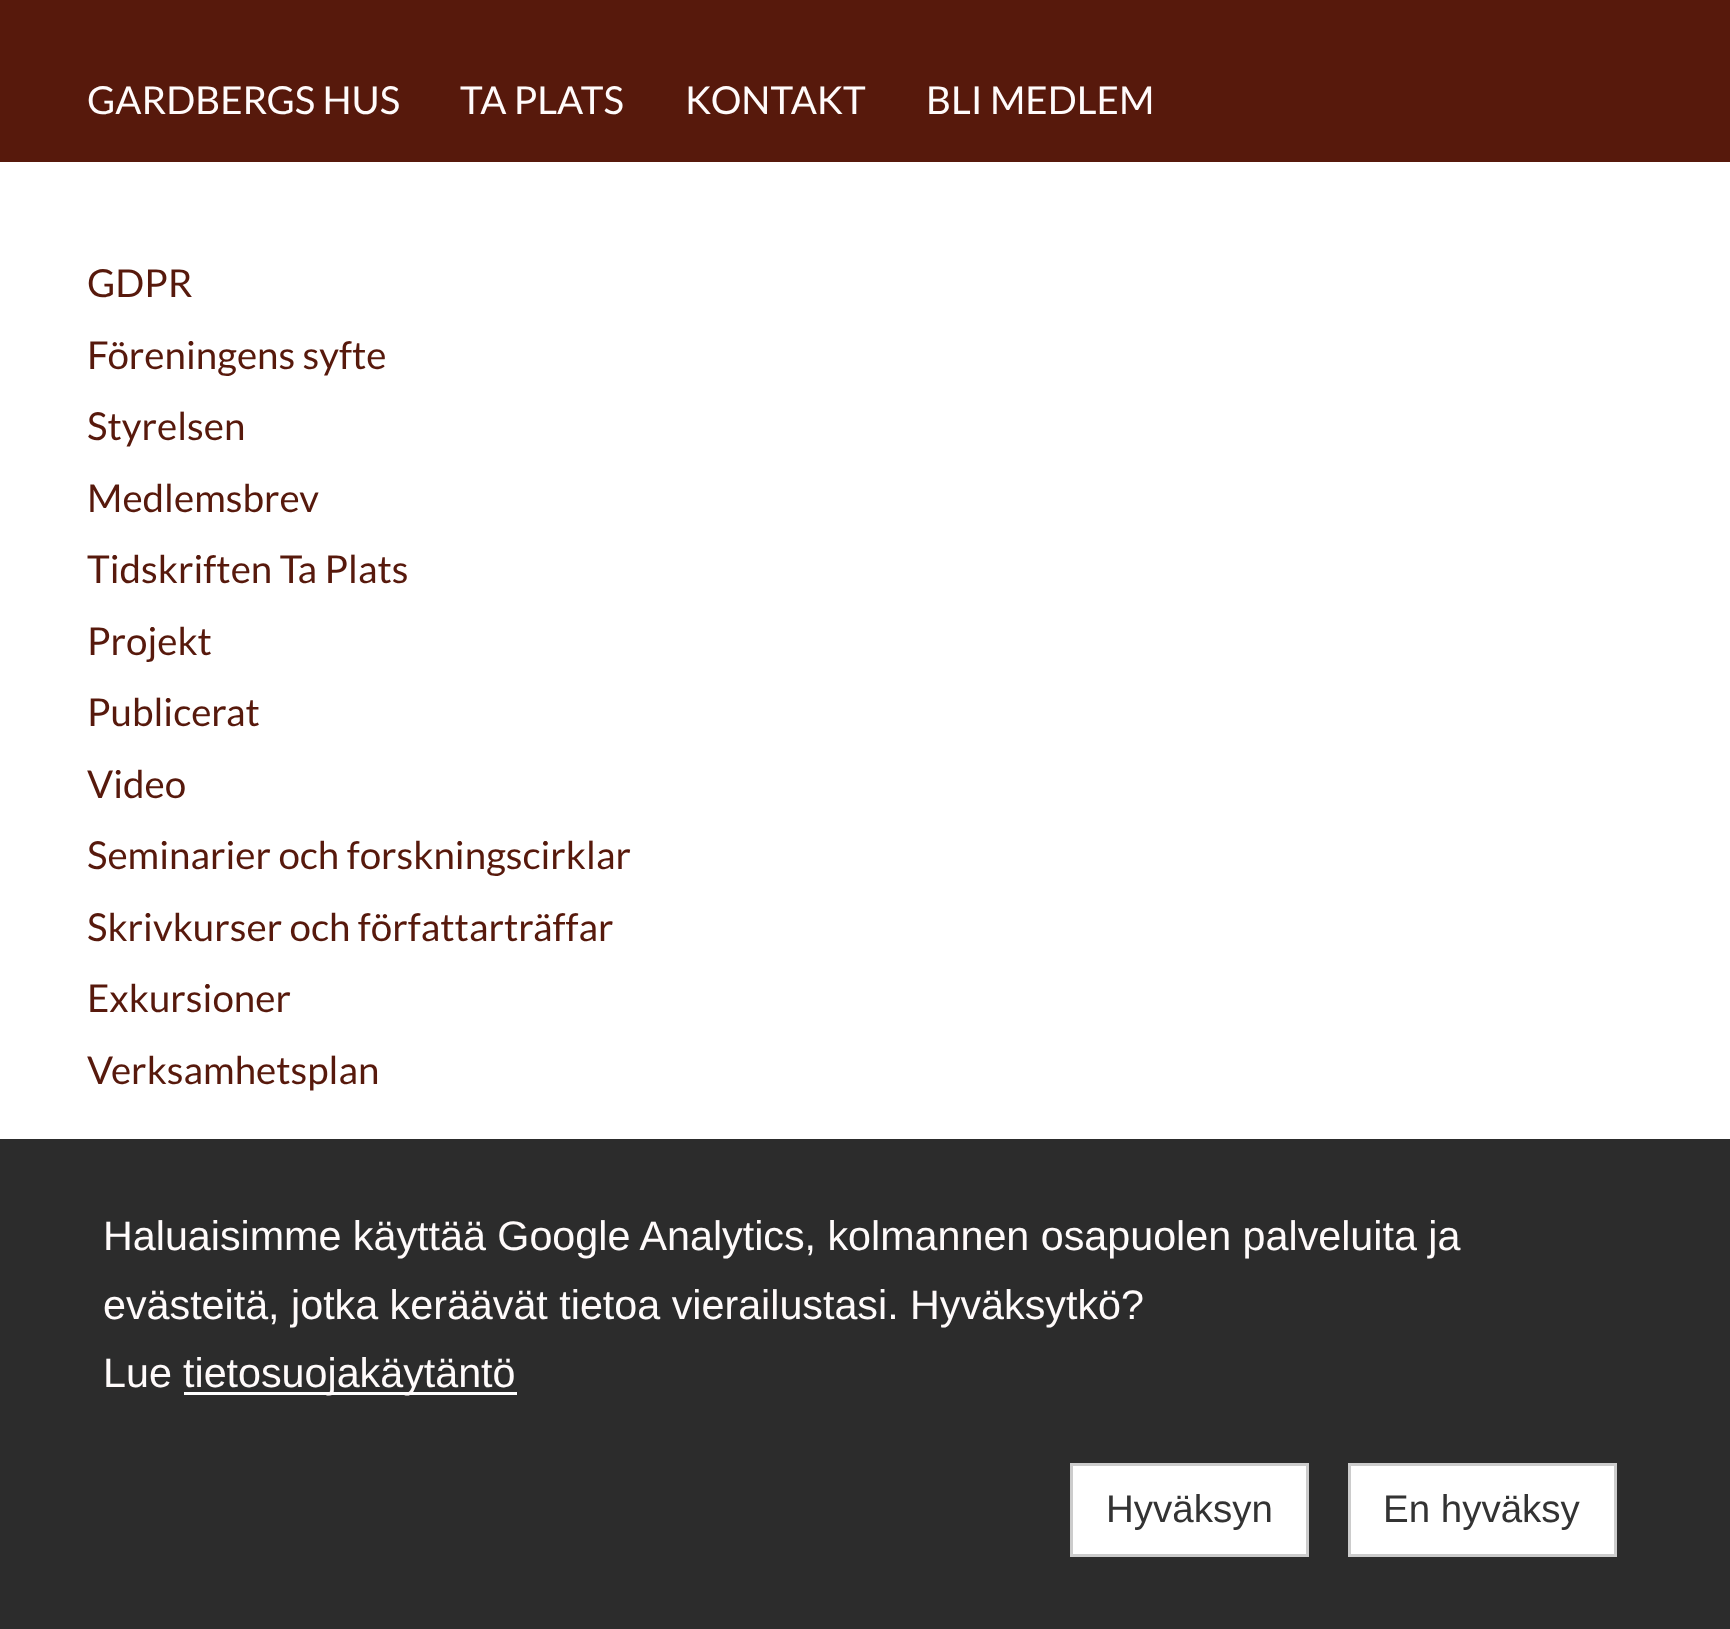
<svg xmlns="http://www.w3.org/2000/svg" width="1730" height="1629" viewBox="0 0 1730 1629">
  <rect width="100%" height="100%" fill="#57190c"/>
  <path d="M0 162h1730v977H0z" fill="#fff"/>
  <path d="M0 1139h1730v490H0z" fill="#2c2c2c"/>
  <path d="M184 1392h333v3H184z" fill="#fff"/>
  <path d="M1071.5 1464.5h236v91H1071.5z" fill="#fff" stroke="#ccc" stroke-width="3"/>
  <path d="M1349.5 1464.5h266v91H1349.5z" fill="#fff" stroke="#ccc" stroke-width="3"/>
  <g font-family="Lato" font-size="38.5" fill="#fffbfb">
    <text x="87" y="114">GARDBERGS HUS</text>
    <text x="460" y="114">TA PLATS</text>
    <text x="685" y="114">KONTAKT</text>
    <text x="926" y="114">BLI MEDLEM</text>
  </g>
  <g font-family="Lato" font-size="38.5" fill="#57190c">
    <text x="87" y="297">GDPR</text>
    <text x="87" y="369">Föreningens syfte</text>
    <text x="87" y="440">Styrelsen</text>
    <text x="87" y="512">Medlemsbrev</text>
    <text x="87" y="583">Tidskriften Ta Plats</text>
    <text x="87" y="655">Projekt</text>
    <text x="87" y="726">Publicerat</text>
    <text x="87" y="798">Video</text>
    <text x="87" y="869">Seminarier och forskningscirklar</text>
    <text x="87" y="941">Skrivkurser och författarträffar</text>
    <text x="87" y="1012">Exkursioner</text>
    <text x="87" y="1084">Verksamhetsplan</text>
  </g>
  <g font-family="Liberation Sans" font-size="41.25" fill="#fffbfb">
    <text x="103" y="1250">Haluaisimme käyttää Google Analytics, kolmannen osapuolen palveluita ja</text>
    <text x="103" y="1319">evästeitä, jotka keräävät tietoa vierailustasi. Hyväksytkö?</text>
    <text x="103" y="1387">Lue</text>
    <text x="183" y="1387">tietosuojakäytäntö</text>
  </g>
  <g font-family="Liberation Sans" font-size="38.5" fill="#333">
    <text x="1106" y="1522">Hyväksyn</text>
    <text x="1383" y="1522">En hyväksy</text>
  </g>
</svg>
